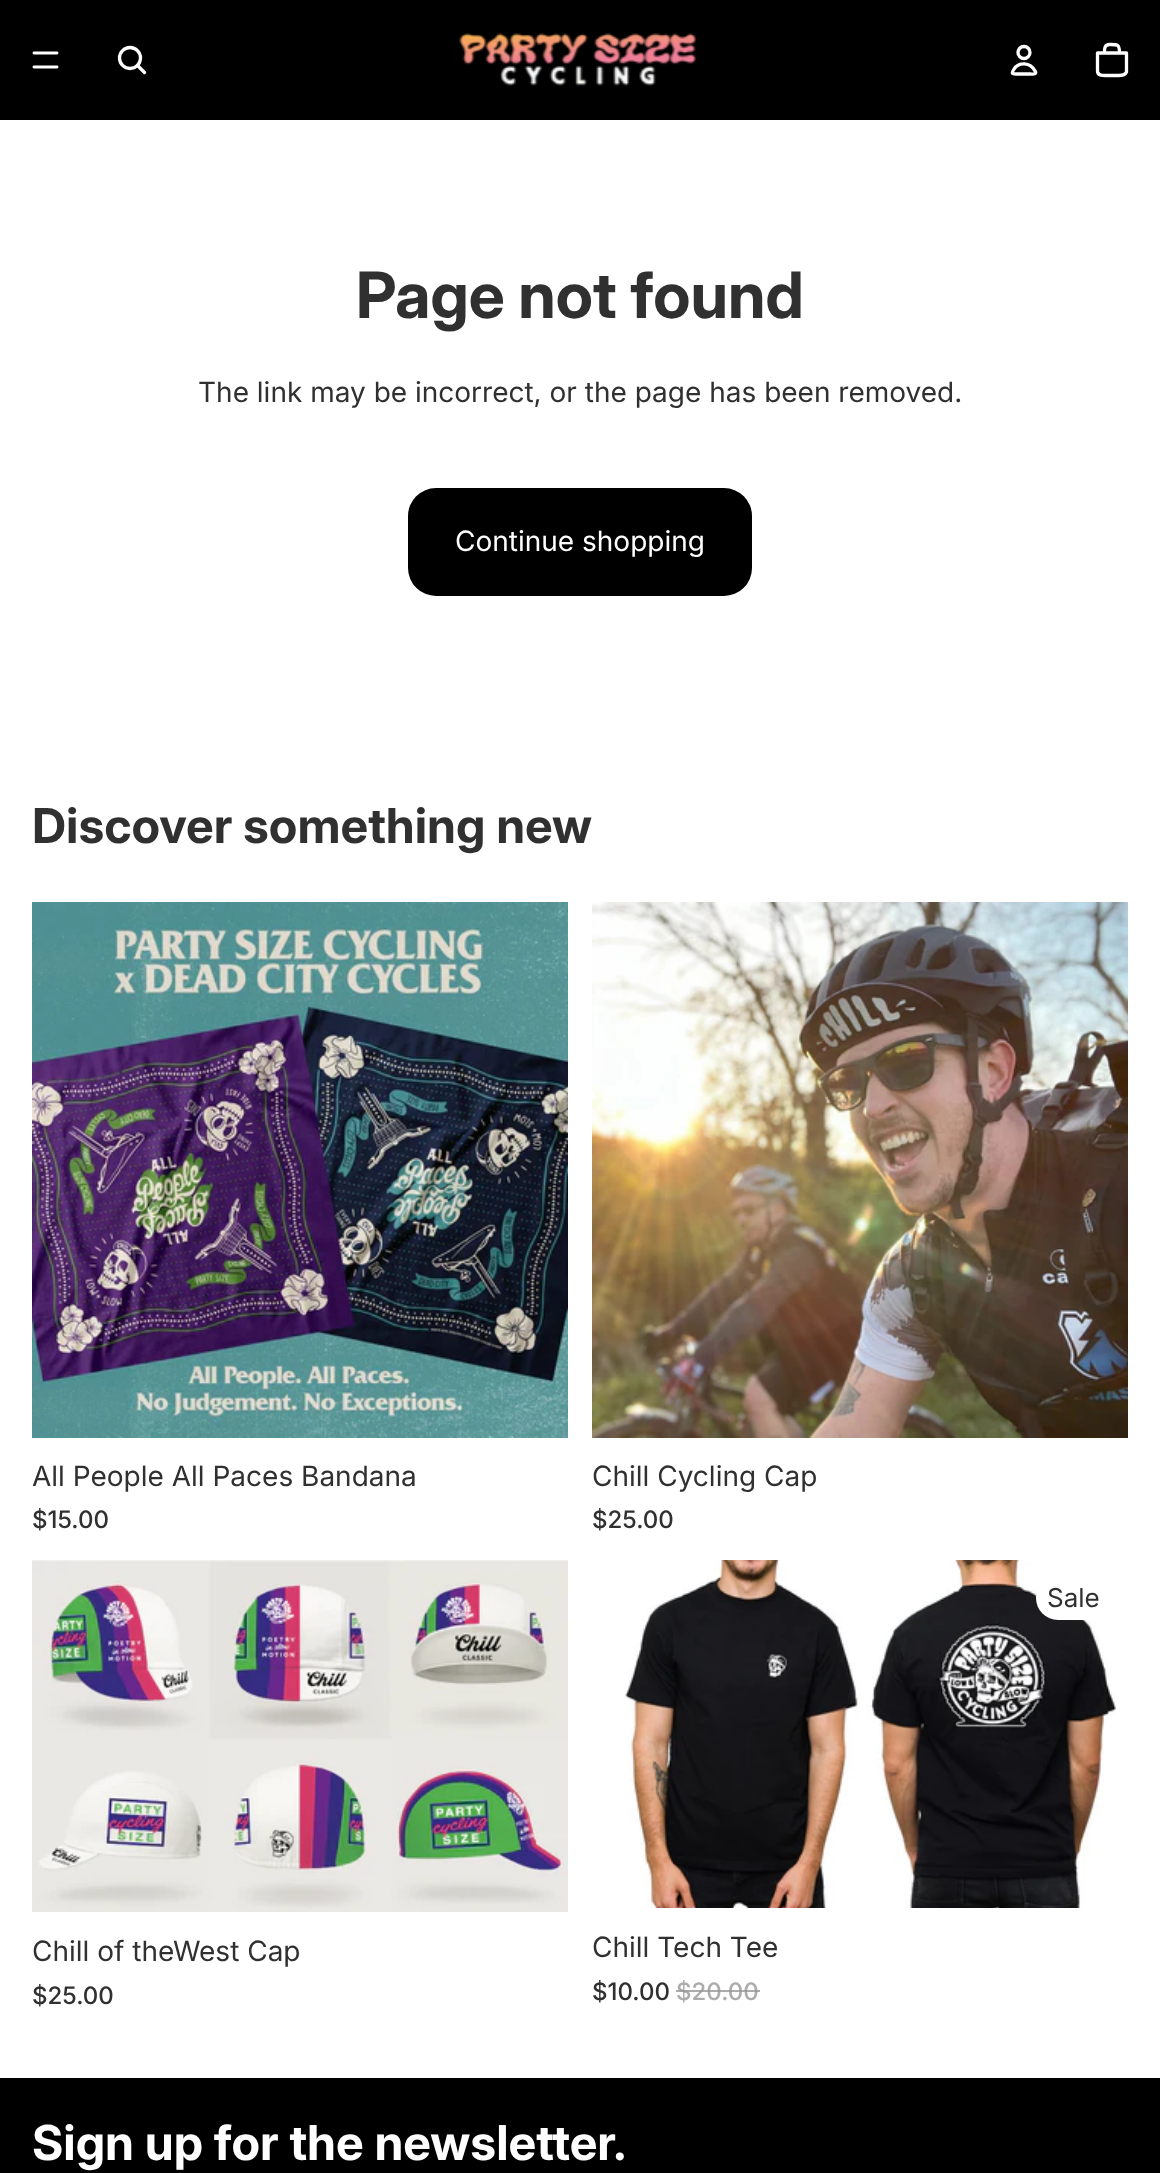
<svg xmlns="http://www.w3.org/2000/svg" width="1160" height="2173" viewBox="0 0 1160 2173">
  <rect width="100%" height="100%" fill="#fff"/>
  <path d="M0 0h1160v120H0z" fill="#000"/>
  <path d="M34 53H57M34 67H57" fill="none" stroke="#fff" stroke-width="2.9" stroke-linecap="round"/>
  <circle cx="130" cy="58" r="10.5" fill="none" stroke="#fff" stroke-width="3.3"/>
  <path d="M137.5 65.5L144.5 72.5" fill="none" stroke="#fff" stroke-width="3.3" stroke-linecap="round" stroke-linejoin="round"/>
  <image x="459" y="33" width="238" height="54" href="img/1.png"/>
  <circle cx="1024" cy="52.5" r="6" fill="none" stroke="#fff" stroke-width="3.3"/>
  <path d="M1013.5 70C1011 74 1012.5 74 1017 74H1031C1031.5 74 1035 74.5 1035.5 73C1036 72.5 1035.5 71.5 1035 71C1030.5 62.5 1018.5 61 1013.5 70" fill="none" stroke="#fff" stroke-width="3.3" stroke-linecap="round" stroke-linejoin="round"/>
  <path d="M1097.5 53H1126.5V72C1125 75.5 1121.5 75.5 1118.5 75.5H1105.5C1102 75.5 1097.5 75.5 1097.5 71ZM1109.5 44.5C1117.5 44.5 1119.5 44 1119.5 53H1104.5C1104.5 49.5 1104 44.5 1109.5 44.5" fill="none" stroke="#fff" stroke-width="3.3" stroke-linecap="round" stroke-linejoin="round"/>
  <rect x="408" y="488" width="344" height="108" rx="28" fill="#000"/>
  <image x="32" y="902" width="536" height="536" href="img/2.png"/>
  <image x="592" y="902" width="536" height="536" href="img/3.png"/>
  <image x="32" y="1560" width="536" height="352" href="img/4.png"/>
  <image x="624" y="1560" width="493" height="348" href="img/5.png"/>
  <rect x="1036" y="1576" width="76" height="44" rx="22" fill="#fff"/>
  <path d="M0 2078h1160v95H0z" fill="#000"/>
  <text x="356" y="318" font-family="Inter" font-size="64" font-weight="bold" fill="#303030">Page not found</text>
  <text x="198" y="402" font-family="Inter" font-size="28" fill="#303030">The link may be incorrect, or the page has been removed.</text>
  <text x="455" y="551" font-family="Inter" font-size="28" fill="#fff">Continue shopping</text>
  <text x="32" y="843" font-family="'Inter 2'" font-size="48" font-weight="bold" fill="#303030">Discover something new</text>
  <text x="32" y="1486" font-family="Inter" font-size="28" fill="#303030">All People All Paces Bandana</text>
  <text x="32" y="1528" font-family="Inter" font-size="24" font-weight="500" fill="#303030">$15.00</text>
  <text x="592" y="1486" font-family="Inter" font-size="28" fill="#303030">Chill Cycling Cap</text>
  <text x="592" y="1528" font-family="Inter" font-size="24" font-weight="500" fill="#303030">$25.00</text>
  <text x="32" y="1961" font-family="Inter" font-size="28" fill="#303030">Chill of theWest Cap</text>
  <text x="32" y="2004" font-family="Inter" font-size="24" font-weight="500" fill="#303030">$25.00</text>
  <text x="1047" y="1607" font-family="Inter" font-size="26" fill="#303030">Sale</text>
  <text x="592" y="1957" font-family="Inter" font-size="28" fill="#303030">Chill Tech Tee</text>
  <text x="592" y="2000" font-family="Inter" font-size="24" font-weight="500" fill="#303030">$10.00</text>
  <text x="676" y="2000" font-family="Inter" font-size="24" font-weight="500" fill="#acacac">$20.00</text>
  <path d="M676 1990h84v2H676z" fill="#999999cf"/>
  <text x="32" y="2160" font-family="'Inter 2'" font-size="48" font-weight="bold" fill="#fff">Sign up for the newsletter.</text>
</svg>
